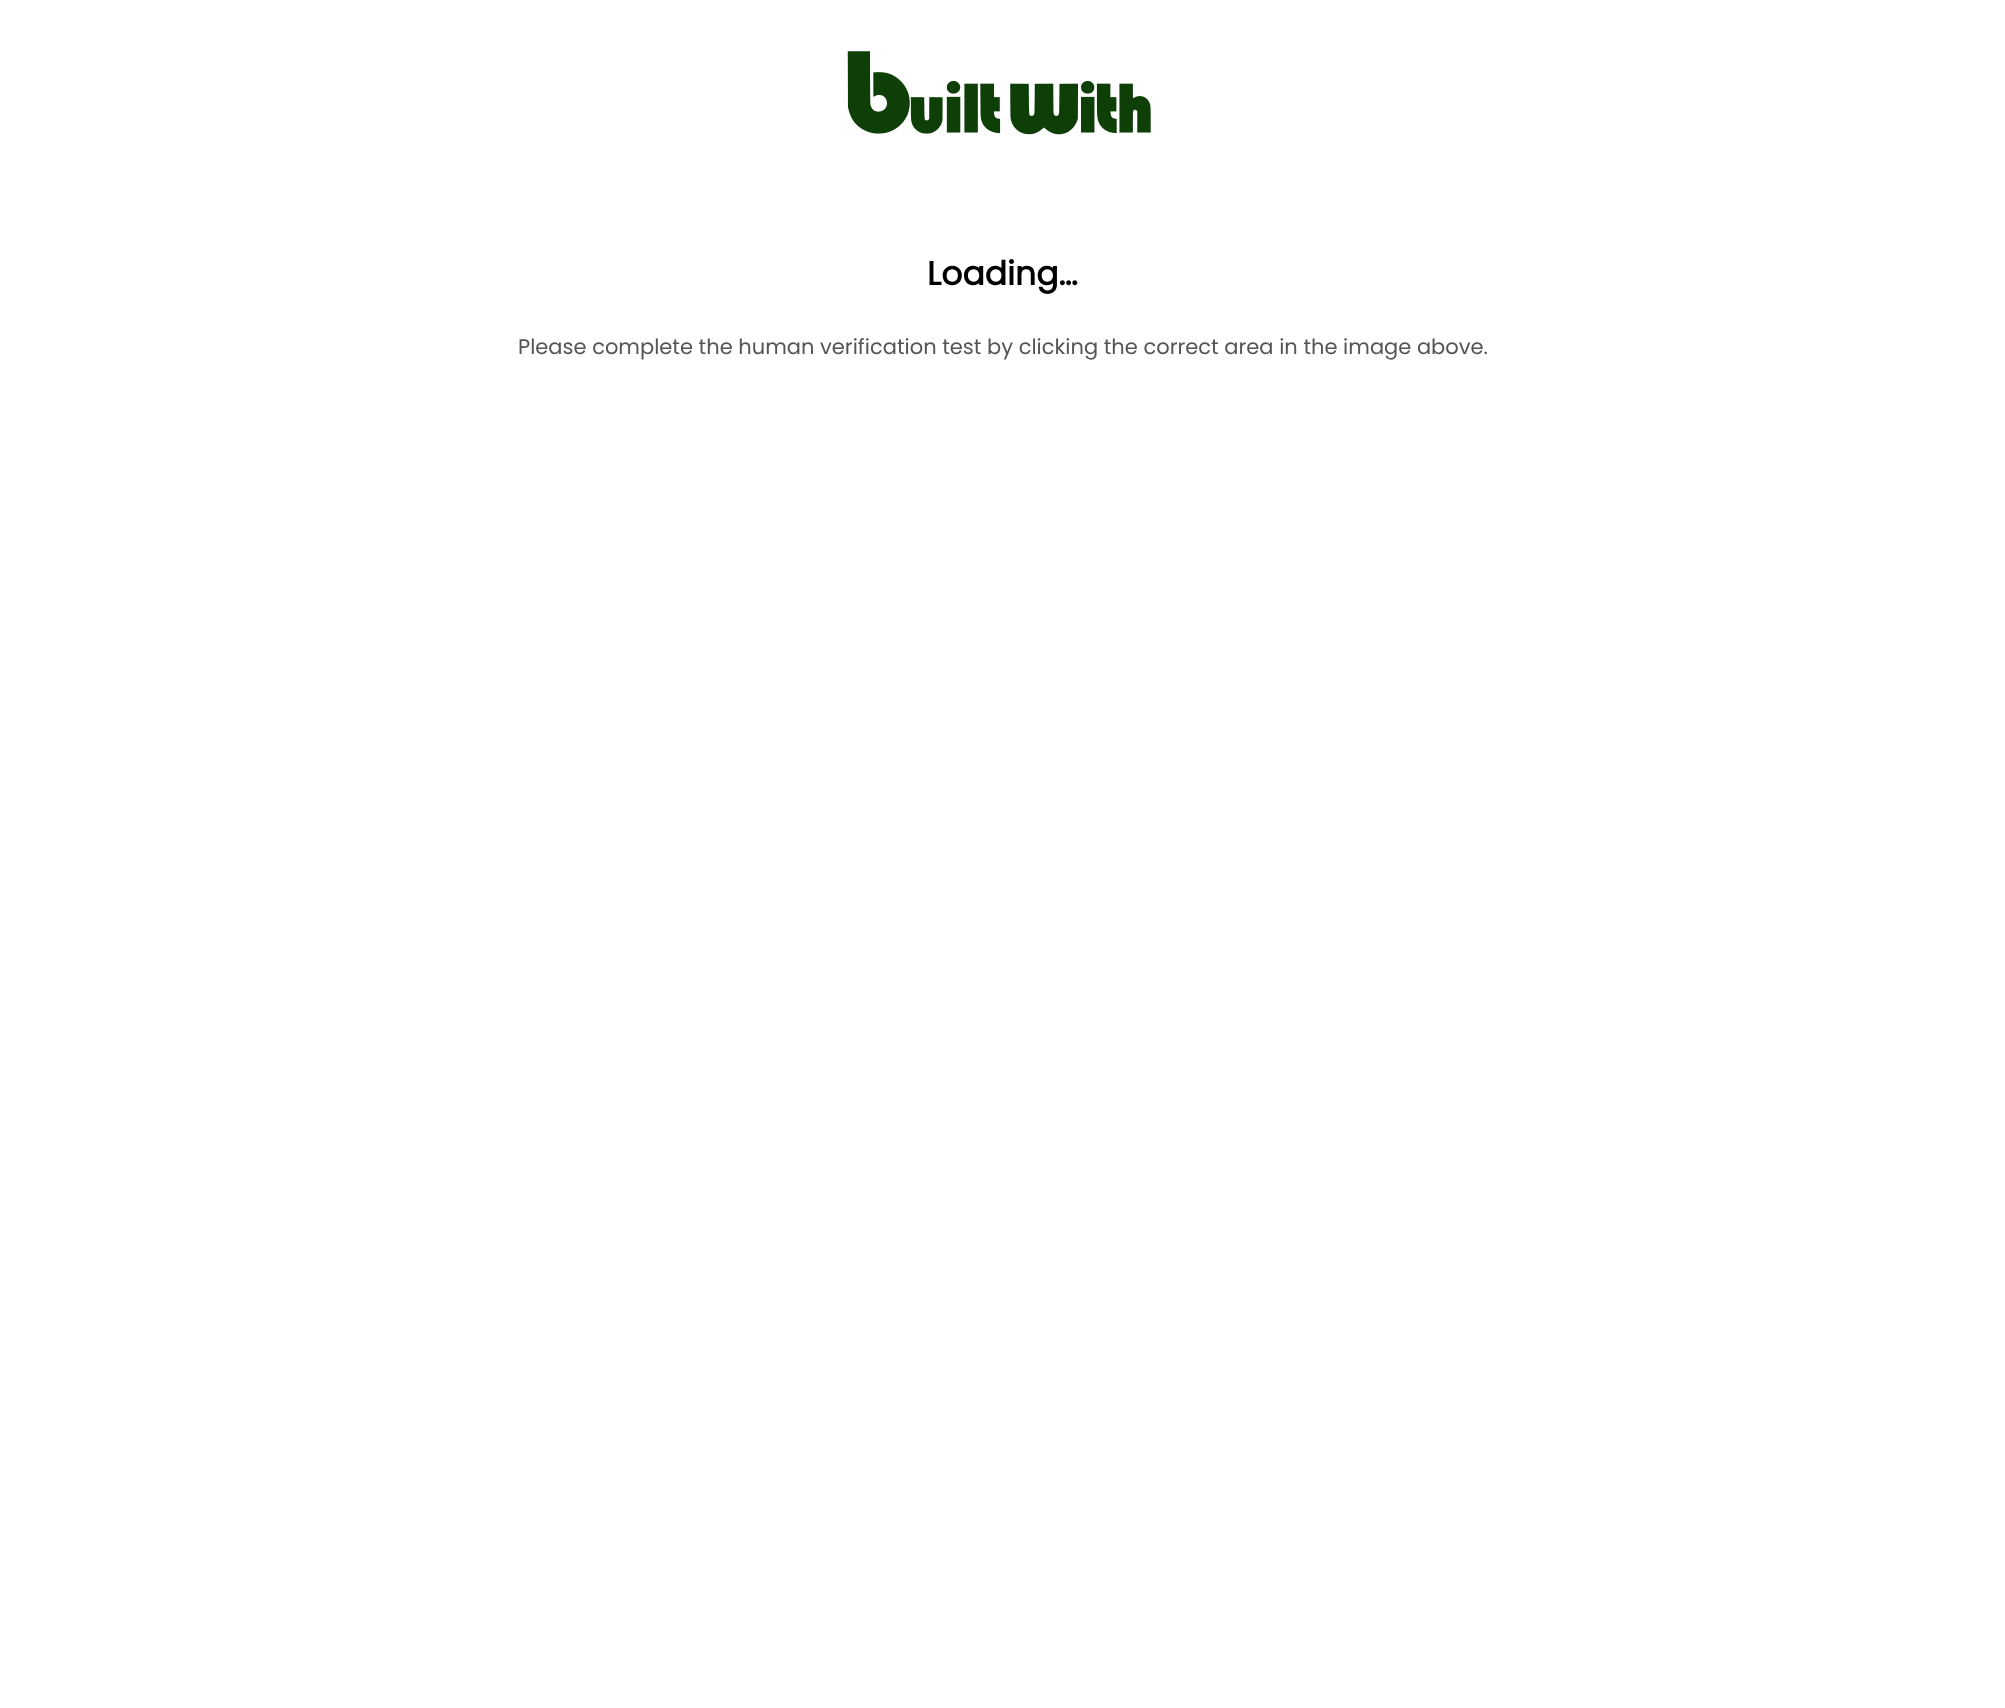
<svg xmlns="http://www.w3.org/2000/svg" width="2005" height="1708" viewBox="0 0 2005 1708">
  <rect width="100%" height="100%" fill="#fff"/>
  <image x="847" y="51" width="304" height="84" href="img/1.png"/>
  <text x="927" y="285" font-family="Poppins" font-size="33" font-weight="bold" fill="#000">Loading…</text>
  <text x="518" y="354" font-family="Poppins" font-size="21" fill="#555">Please complete the human verification test by clicking the correct area in the image above.</text>
</svg>
